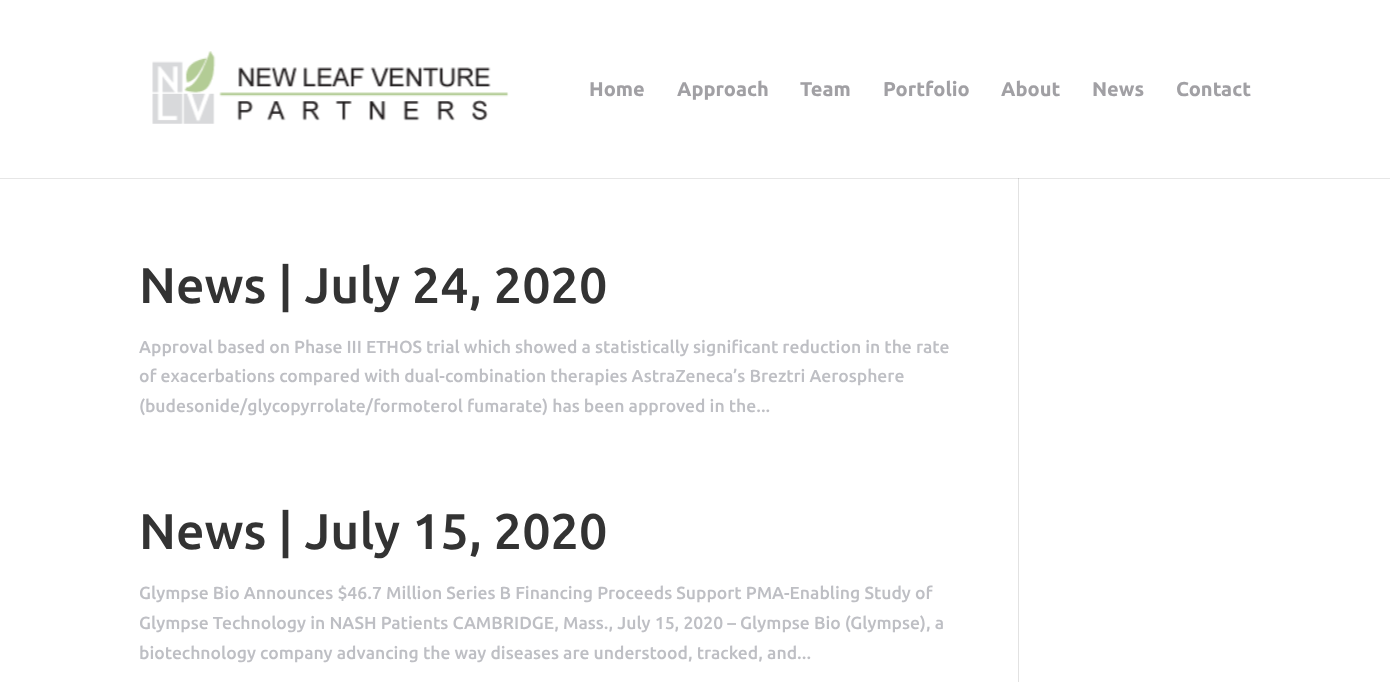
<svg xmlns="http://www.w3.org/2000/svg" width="1390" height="682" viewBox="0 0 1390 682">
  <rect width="100%" height="100%" fill="#fff"/>
  <path d="M0 178h1390v1H0z" fill="#e6e6e6"/>
  <image x="152" y="51" width="357" height="73" href="img/1.png"/>
  <path d="M1018 178h1v504H1018z" fill="#e2e2e2"/>
  <path d="M1018 178h1v1H1018z" fill="#cbcbcb"/>
  <g font-family="Ubuntu" font-size="20" font-weight="bold" fill="#a1a0a4">
    <text x="589" y="96">Home</text>
    <text x="677" y="96">Approach</text>
    <text x="800" y="96">Team</text>
    <text x="883" y="96">Portfolio</text>
    <text x="1001" y="96">About</text>
    <text x="1092" y="96">News</text>
    <text x="1176" y="96">Contact</text>
  </g>
  <text x="139" y="303" font-family="Ubuntu" font-size="50" font-weight="500" fill="#333">News | July 24, 2020</text>
  <g font-family="Ubuntu" font-size="17.5" font-weight="500" fill="#bebfc4">
    <text x="139" y="353">Approval based on Phase III ETHOS trial which showed a statistically significant reduction in the rate</text>
    <text x="139" y="382">of exacerbations compared with dual-combination therapies AstraZeneca’s Breztri Aerosphere</text>
    <text x="139" y="412">(budesonide/glycopyrrolate/formoterol fumarate) has been approved in the...</text>
  </g>
  <text x="139" y="549" font-family="Ubuntu" font-size="50" font-weight="500" fill="#333">News | July 15, 2020</text>
  <g font-family="Ubuntu" font-size="17.5" font-weight="500" fill="#bebfc4">
    <text x="139" y="599">Glympse Bio Announces $46.7 Million Series B Financing Proceeds Support PMA-Enabling Study of</text>
    <text x="139" y="629">Glympse Technology in NASH Patients CAMBRIDGE, Mass., July 15, 2020 – Glympse Bio (Glympse), a</text>
    <text x="139" y="659">biotechnology company advancing the way diseases are understood, tracked, and...</text>
  </g>
</svg>
